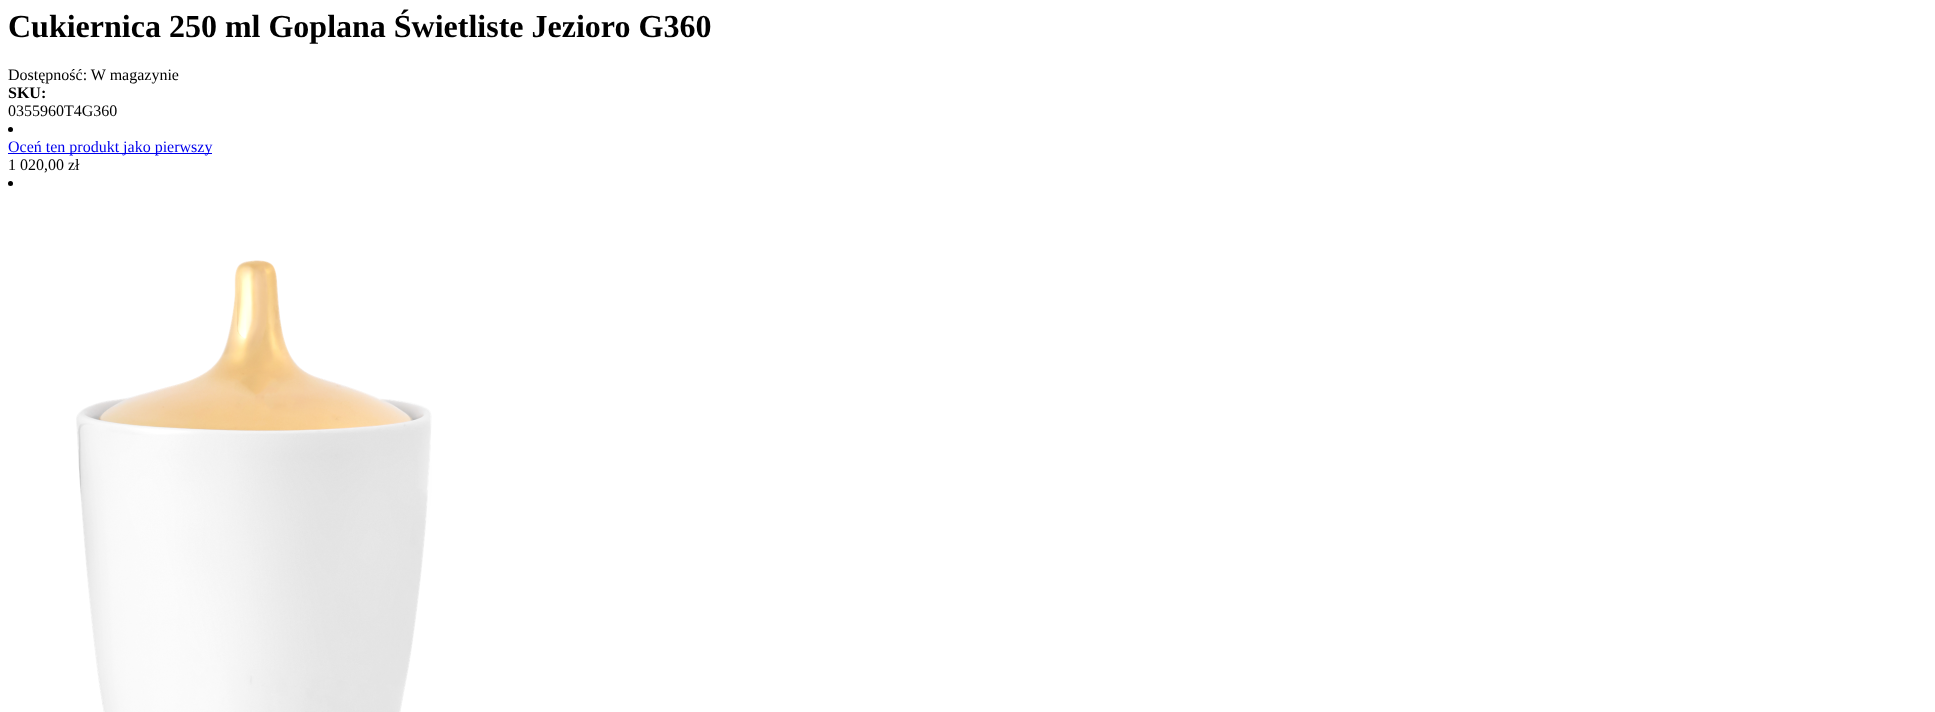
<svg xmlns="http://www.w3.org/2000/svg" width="1935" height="712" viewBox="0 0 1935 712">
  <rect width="100%" height="100%" fill="#fff"/>
  <circle cx="10.5" cy="129.5" r="2.5" fill="#000"/>
  <path d="M8 153h204v1H8z" fill="#00e"/>
  <circle cx="10.5" cy="183.5" r="2.5" fill="#000"/>
  <image x="76" y="260" width="356" height="452" href="img/1.png"/>
  <text x="8" y="37" font-family="Liberation Serif" font-size="32" font-weight="bold" fill="#000">Cukiernica 250 ml Goplana Świetliste Jezioro G360</text>
  <text x="8" y="80" font-family="Liberation Serif" font-size="16" fill="#000">Dostępność: W magazynie</text>
  <text x="8" y="98" font-family="Liberation Serif" font-size="16" font-weight="bold" fill="#000">SKU:</text>
  <text x="8" y="116" font-family="Liberation Serif" font-size="16" fill="#000">0355960T4G360</text>
  <text x="8" y="152" font-family="Liberation Serif" font-size="16" fill="#00e">Oceń ten produkt jako pierwszy</text>
  <text x="8" y="170" font-family="Liberation Serif" font-size="16" fill="#000">1 020,00 zł</text>
</svg>
